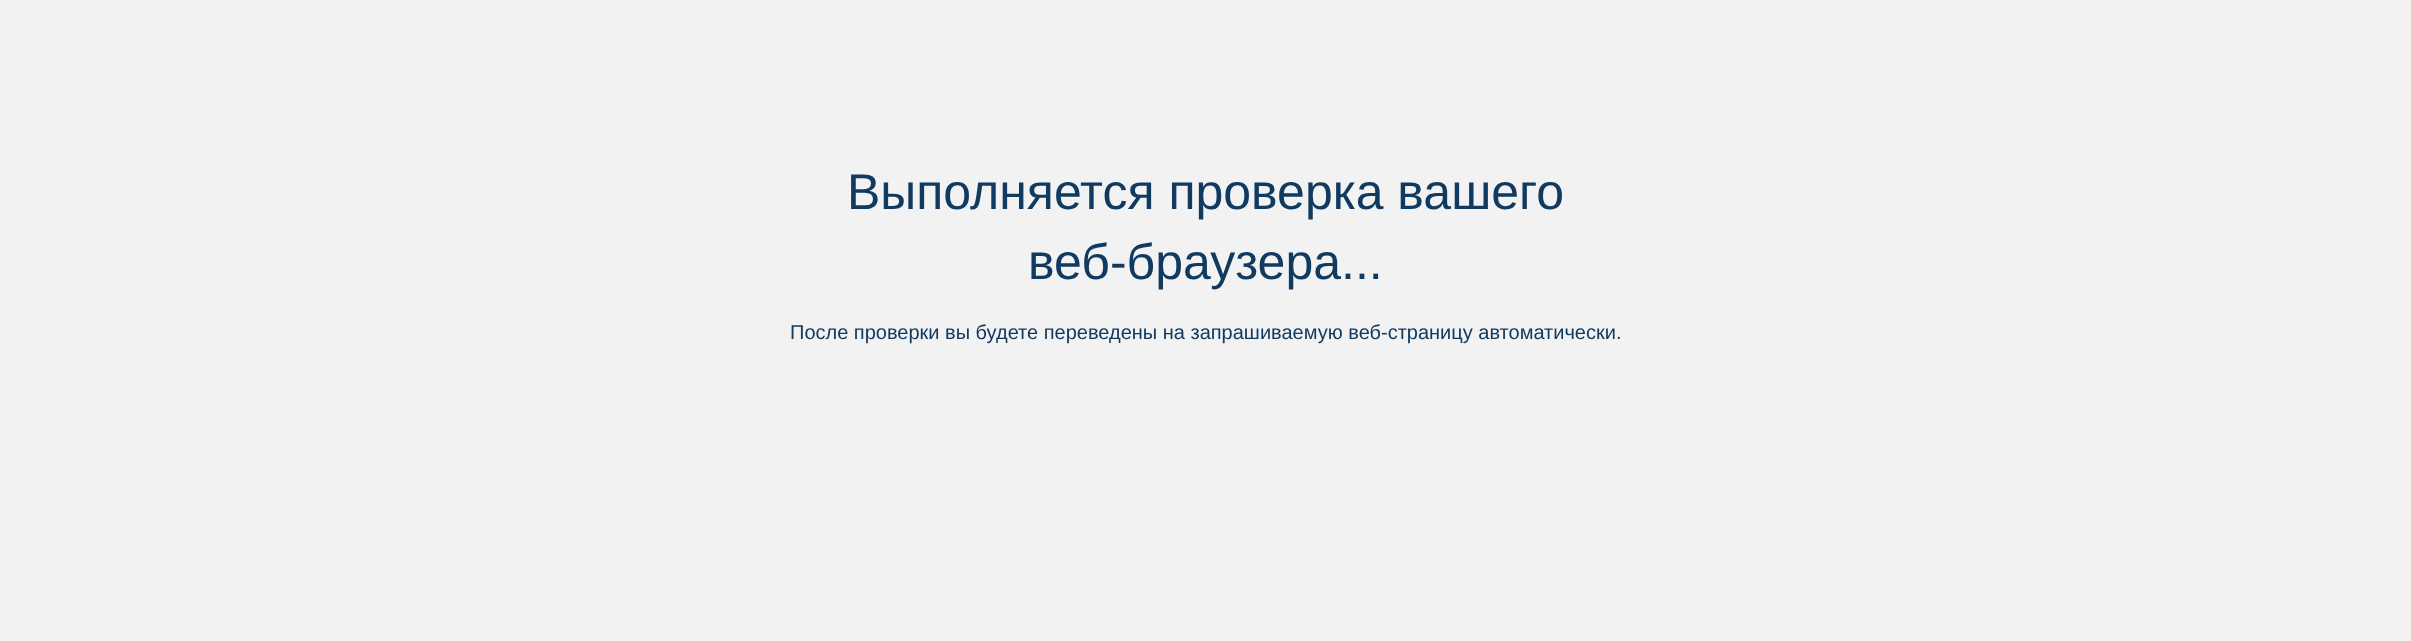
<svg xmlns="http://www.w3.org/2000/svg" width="2411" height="641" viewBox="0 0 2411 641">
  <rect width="100%" height="100%" fill="#f2f2f2"/>
  <g font-family="Liberation Sans" font-size="50" fill="#113a60">
    <text x="847" y="209">Выполняется проверка вашего</text>
    <text x="1028" y="279">веб-браузера...</text>
  </g>
  <text x="790" y="339" font-family="Liberation Sans" font-size="20" fill="#113a60">После проверки вы будете переведены на запрашиваемую веб-страницу автоматически.</text>
</svg>
